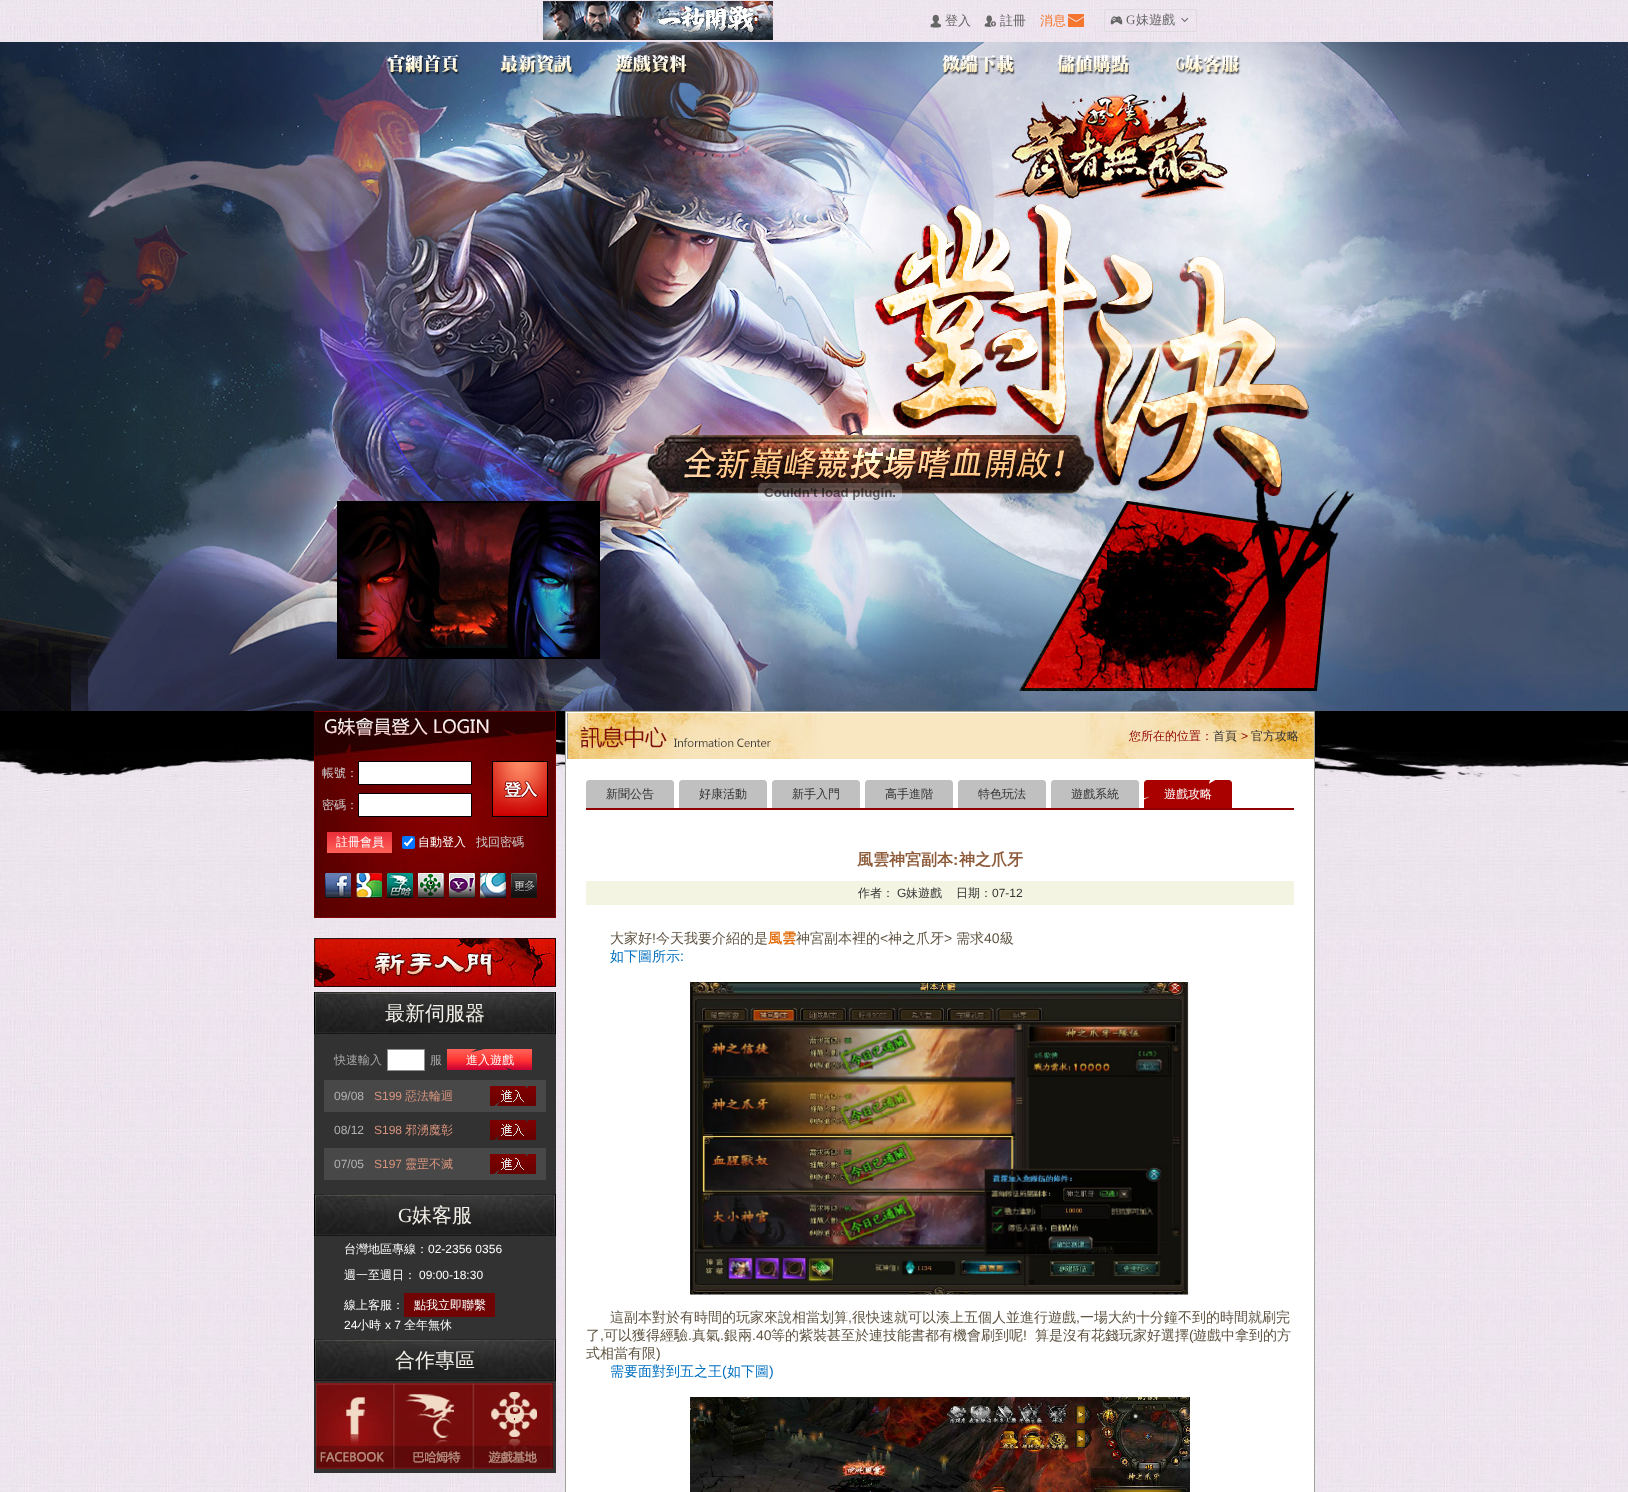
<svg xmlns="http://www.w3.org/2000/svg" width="1628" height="1492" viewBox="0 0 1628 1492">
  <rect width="100%" height="100%" fill="#fff"/>
  <image x="0" y="0" width="1628" height="1492" href="img/1.png"/>
  <path d="M537 9h1v25H537z" fill="#ddd"/>
  <image x="543" y="1" width="230" height="39" href="img/2.png"/>
  <image x="930" y="14" width="11" height="14" href="img/3.png"/>
  <image x="984" y="15" width="12" height="12" href="img/4.png"/>
  <image x="1068" y="14" width="16" height="13" href="img/5.png"/>
  <rect x="1104.5" y="9.5" width="92" height="22" rx="1.5" fill="none" stroke="#ddd"/>
  <image x="1110" y="16" width="13" height="9" href="img/6.png"/>
  <image x="1181" y="17" width="8" height="5" href="img/7.png"/>
  <image x="0" y="42" width="1628" height="669" href="img/8.png"/>
  <image x="387" y="54" width="73" height="22" href="img/9.png"/>
  <image x="500" y="55" width="74" height="21" href="img/10.png"/>
  <image x="615" y="55" width="73" height="20" href="img/11.png"/>
  <image x="942" y="55" width="73" height="21" href="img/12.png"/>
  <image x="1057" y="55" width="72" height="21" href="img/13.png"/>
  <image x="1176" y="54" width="65" height="21" href="img/14.png"/>
  <image x="758" y="483" width="144" height="18" href="img/15.png"/>
  <image x="0" y="711" width="1628" height="218" href="img/16.png"/>
  <image x="314" y="711" width="242" height="207" href="img/17.png"/>
  <path d="M358.5 761.5h113v23H358.5z" fill="#fff" stroke="#000"/>
  <image x="492" y="761" width="56" height="56" href="img/18.png"/>
  <path d="M358.5 793.5h113v23H358.5z" fill="#fff" stroke="#000"/>
  <image x="327" y="832" width="65" height="21" href="img/19.png"/>
  <rect x="402" y="836" width="13" height="13" rx="2" fill="#0075ff"/>
  <path d="M404.5 842.5L407 845L412.5 838.5" fill="none" stroke="#fff" stroke-width="2.1"/>
  <image x="325" y="873" width="26" height="25" href="img/20.png"/>
  <image x="356" y="873" width="26" height="25" href="img/21.png"/>
  <image x="387" y="873" width="26" height="25" href="img/22.png"/>
  <image x="418" y="873" width="26" height="25" href="img/23.png"/>
  <image x="449" y="873" width="26" height="25" href="img/24.png"/>
  <image x="480" y="873" width="26" height="25" href="img/25.png"/>
  <image x="511" y="873" width="26" height="25" href="img/26.png"/>
  <image x="314" y="938" width="242" height="49" href="img/27.png"/>
  <path d="M314 1034h242v160H314z" fill="#323232"/>
  <image x="314" y="992" width="242" height="42" href="img/28.png"/>
  <path d="M387.5 1049.5h37v21H387.5z" fill="#fff" stroke="#8e8e8e"/>
  <image x="447" y="1049" width="85" height="21" href="img/29.png"/>
  <path d="M324 1080h222v32H324z" fill="#484848"/>
  <image x="490" y="1086" width="46" height="20" href="img/30.png"/>
  <image x="490" y="1120" width="46" height="20" href="img/31.png"/>
  <path d="M324 1148h222v32H324z" fill="#484848"/>
  <image x="490" y="1154" width="46" height="20" href="img/30.png"/>
  <path d="M314 1236h242v103H314z" fill="#323232"/>
  <image x="314" y="1194" width="242" height="42" href="img/28.png"/>
  <path d="M404 1293h91v24H404z" fill="#700404"/>
  <path d="M314 1381h242v92H314z" fill="#323232"/>
  <image x="314" y="1339" width="242" height="42" href="img/28.png"/>
  <image x="316" y="1383" width="237" height="86" href="img/32.png"/>
  <path d="M565.5 711.5h749v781H565.5z" fill="#fff" stroke="#a1a29a"/>
  <image x="567" y="713" width="747" height="46" href="img/33.png"/>
  <path d="M586 808h708v2H586z" fill="#900000"/>
  <path d="M589 780H671C672.5 780 674 781.5 674 783V808H586V783C586 781.5 587.5 780 589 780Z" fill="#c0c0c0"/>
  <path d="M682 780H764C765.5 780 767 781.5 767 783V808H679V783C679 781.5 680.5 780 682 780Z" fill="#c0c0c0"/>
  <path d="M775 780H857C858.5 780 860 781.5 860 783V808H772V783C772 781.5 773.5 780 775 780Z" fill="#c0c0c0"/>
  <path d="M868 780H950C951.5 780 953 781.5 953 783V808H865V783C865 781.5 866.5 780 868 780Z" fill="#c0c0c0"/>
  <path d="M961 780H1043C1044.5 780 1046 781.5 1046 783V808H958V783C958 781.5 959.5 780 961 780Z" fill="#c0c0c0"/>
  <path d="M1054 780H1136C1137.5 780 1139 781.5 1139 783V808H1051V783C1051 781.5 1052.5 780 1054 780Z" fill="#c0c0c0"/>
  <image x="1144" y="780" width="88" height="28" href="img/34.png"/>
  <path d="M586 881h708v24H586z" fill="#f3f4e2"/>
  <image x="690" y="982" width="500" height="313" href="img/35.png"/>
  <image x="690" y="1397" width="500" height="95" href="img/36.png"/>
  <g font-family="WenQuanYi Zen Hei" font-size="13" font-weight="500" fill="#666">
    <text x="945" y="25">登入</text>
    <text x="1000" y="25">註冊</text>
  </g>
  <text x="1040" y="25" font-family="WenQuanYi Zen Hei" font-size="13" font-weight="500" fill="#f7762c">消息</text>
  <text x="1126" y="24" font-family="Liberation Serif" font-size="13" fill="#666">G</text>
  <text x="1136" y="24" font-family="WenQuanYi Zen Hei" font-size="13" font-weight="500" fill="#666">妹遊戲</text>
  <g font-family="WenQuanYi Zen Hei" font-size="12" font-weight="500" fill="#cfcfcf">
    <text x="322" y="777">帳號：</text>
    <text x="322" y="809">密碼：</text>
  </g>
  <g font-family="WenQuanYi Zen Hei" font-size="12" font-weight="500" fill="#fff">
    <text x="336" y="846">註冊會員</text>
    <text x="418" y="846">自動登入</text>
  </g>
  <text x="476" y="846" font-family="WenQuanYi Zen Hei" font-size="12" font-weight="500" fill="#cfcfcf">找回密碼</text>
  <text x="385" y="1020" font-family="WenQuanYi Zen Hei" font-size="20" font-weight="500" fill="#f4f1ea">最新伺服器</text>
  <g font-family="WenQuanYi Zen Hei" font-size="12" font-weight="500" fill="#a9a9a9">
    <text x="334" y="1064">快速輸入</text>
    <text x="430" y="1064">服</text>
  </g>
  <text x="466" y="1064" font-family="WenQuanYi Zen Hei" font-size="12" font-weight="500" fill="#fff">進入遊戲</text>
  <text x="334" y="1100" font-family="Liberation Sans" font-size="12" fill="#b3b3b3">09/08</text>
  <text x="374" y="1100" font-family="Liberation Sans" font-size="12" fill="#d8947d">S199</text>
  <text x="405" y="1100" font-family="WenQuanYi Zen Hei" font-size="12" font-weight="500" fill="#d8947d">惡法輪迴</text>
  <text x="334" y="1134" font-family="Liberation Sans" font-size="12" fill="#b3b3b3">08/12</text>
  <text x="374" y="1134" font-family="Liberation Sans" font-size="12" fill="#d8947d">S198</text>
  <text x="405" y="1134" font-family="WenQuanYi Zen Hei" font-size="12" font-weight="500" fill="#d8947d">邪湧魔彰</text>
  <text x="334" y="1168" font-family="Liberation Sans" font-size="12" fill="#b3b3b3">07/05</text>
  <text x="374" y="1168" font-family="Liberation Sans" font-size="12" fill="#d8947d">S197</text>
  <text x="405" y="1168" font-family="WenQuanYi Zen Hei" font-size="12" font-weight="500" fill="#d8947d">靈罡不滅</text>
  <text x="398" y="1222" font-family="Liberation Serif" font-size="20" fill="#f4f1ea">G</text>
  <text x="412" y="1222" font-family="WenQuanYi Zen Hei" font-size="20" font-weight="500" fill="#f4f1ea">妹客服</text>
  <text x="344" y="1253" font-family="WenQuanYi Zen Hei" font-size="12" font-weight="500" fill="#fff">台灣地區專線：</text>
  <text x="428" y="1253" font-family="Liberation Sans" font-size="12" fill="#fff">02-2356 0356</text>
  <text x="344" y="1279" font-family="WenQuanYi Zen Hei" font-size="12" font-weight="500" fill="#fff">週一至週日：</text>
  <text x="419" y="1279" font-family="Liberation Sans" font-size="12" fill="#fff">09:00-18:30</text>
  <g font-family="WenQuanYi Zen Hei" font-size="12" font-weight="500" fill="#fff">
    <text x="344" y="1309">線上客服：</text>
    <text x="414" y="1309">點我立即聯繫</text>
  </g>
  <text x="344" y="1329" font-family="Liberation Sans" font-size="12" fill="#fff">24</text>
  <text x="357" y="1329" font-family="WenQuanYi Zen Hei" font-size="12" font-weight="500" fill="#fff">小時</text>
  <text x="385" y="1329" font-family="Liberation Sans" font-size="12" fill="#fff">x 7</text>
  <text x="404" y="1329" font-family="WenQuanYi Zen Hei" font-size="12" font-weight="500" fill="#fff">全年無休</text>
  <text x="395" y="1367" font-family="WenQuanYi Zen Hei" font-size="20" font-weight="500" fill="#f4f1ea">合作專區</text>
  <text x="1129" y="740" font-family="WenQuanYi Zen Hei" font-size="12" font-weight="500" fill="#8f0000">您所在的位置：</text>
  <text x="1213" y="740" font-family="WenQuanYi Zen Hei" font-size="12" font-weight="500" fill="#333">首頁</text>
  <text x="1241" y="740" font-family="Liberation Sans" font-size="12" fill="#8f0000">&gt;</text>
  <g font-family="WenQuanYi Zen Hei" font-size="12" font-weight="500" fill="#333">
    <text x="1251" y="740">官方攻略</text>
    <text x="606" y="798">新聞公告</text>
    <text x="699" y="798">好康活動</text>
    <text x="792" y="798">新手入門</text>
    <text x="885" y="798">高手進階</text>
    <text x="978" y="798">特色玩法</text>
    <text x="1071" y="798">遊戲系統</text>
  </g>
  <text x="1164" y="798" font-family="WenQuanYi Zen Hei" font-size="12" font-weight="500" fill="#fff">遊戲攻略</text>
  <text x="857" y="865" font-family="WenQuanYi Zen Hei" font-size="16" font-weight="bold" fill="#8e5c3b">風雲神宮副本</text>
  <text x="953" y="865" font-family="Liberation Sans" font-size="16" font-weight="bold" fill="#8e5c3b">:</text>
  <text x="959" y="865" font-family="WenQuanYi Zen Hei" font-size="16" font-weight="bold" fill="#8e5c3b">神之爪牙</text>
  <text x="858" y="897" font-family="WenQuanYi Zen Hei" font-size="12" font-weight="500" fill="#333">作者：</text>
  <text x="897" y="897" font-family="Liberation Sans" font-size="12" fill="#333">G</text>
  <g font-family="WenQuanYi Zen Hei" font-size="12" font-weight="500" fill="#333">
    <text x="906" y="897">妹遊戲</text>
    <text x="956" y="897">日期：</text>
  </g>
  <text x="992" y="897" font-family="Liberation Sans" font-size="12" fill="#333">07-12</text>
  <text x="610" y="943" font-family="WenQuanYi Zen Hei" font-size="14" font-weight="500" fill="#5e5341">大家好</text>
  <text x="652" y="943" font-family="Liberation Sans" font-size="14" fill="#5e5341">!</text>
  <text x="656" y="943" font-family="WenQuanYi Zen Hei" font-size="14" font-weight="500" fill="#5e5341">今天我要介紹的是</text>
  <text x="768" y="943" font-family="WenQuanYi Zen Hei" font-size="14" font-weight="bold" fill="#e36c09">風雲</text>
  <text x="796" y="943" font-family="WenQuanYi Zen Hei" font-size="14" font-weight="500" fill="#5e5341">神宮副本裡的</text>
  <text x="880" y="943" font-family="Liberation Sans" font-size="14" fill="#5e5341">&lt;</text>
  <text x="888" y="943" font-family="WenQuanYi Zen Hei" font-size="14" font-weight="500" fill="#5e5341">神之爪牙</text>
  <text x="944" y="943" font-family="Liberation Sans" font-size="14" fill="#5e5341">&gt;</text>
  <text x="956" y="943" font-family="WenQuanYi Zen Hei" font-size="14" font-weight="500" fill="#5e5341">需求</text>
  <text x="984" y="943" font-family="Liberation Sans" font-size="14" fill="#5e5341">40</text>
  <text x="1000" y="943" font-family="WenQuanYi Zen Hei" font-size="14" font-weight="500" fill="#5e5341">級</text>
  <text x="610" y="961" font-family="WenQuanYi Zen Hei" font-size="14" font-weight="500" fill="#0070c0">如下圖所示</text>
  <text x="680" y="961" font-family="Liberation Sans" font-size="14" fill="#0070c0">:</text>
  <text x="610" y="1322" font-family="WenQuanYi Zen Hei" font-size="14" font-weight="500" fill="#5e5341">這副本對於有時間的玩家來說相當划算</text>
  <text x="848" y="1322" font-family="Liberation Sans" font-size="14" fill="#5e5341">,</text>
  <text x="852" y="1322" font-family="WenQuanYi Zen Hei" font-size="14" font-weight="500" fill="#5e5341">很快速就可以湊上五個人並進行遊戲</text>
  <text x="1076" y="1322" font-family="Liberation Sans" font-size="14" fill="#5e5341">,</text>
  <g font-family="WenQuanYi Zen Hei" font-size="14" font-weight="500" fill="#5e5341">
    <text x="1080" y="1322">一場大約十分鐘不到的時間就刷完</text>
    <text x="586" y="1340">了</text>
  </g>
  <text x="600" y="1340" font-family="Liberation Sans" font-size="14" fill="#5e5341">,</text>
  <text x="604" y="1340" font-family="WenQuanYi Zen Hei" font-size="14" font-weight="500" fill="#5e5341">可以獲得經驗</text>
  <text x="688" y="1340" font-family="Liberation Sans" font-size="14" fill="#5e5341">.</text>
  <text x="692" y="1340" font-family="WenQuanYi Zen Hei" font-size="14" font-weight="500" fill="#5e5341">真氣</text>
  <text x="720" y="1340" font-family="Liberation Sans" font-size="14" fill="#5e5341">.</text>
  <text x="724" y="1340" font-family="WenQuanYi Zen Hei" font-size="14" font-weight="500" fill="#5e5341">銀兩</text>
  <text x="752" y="1340" font-family="Liberation Sans" font-size="14" fill="#5e5341">.40</text>
  <text x="771" y="1340" font-family="WenQuanYi Zen Hei" font-size="14" font-weight="500" fill="#5e5341">等的紫裝甚至於連技能書都有機會刷到呢</text>
  <text x="1023" y="1340" font-family="Liberation Sans" font-size="14" fill="#5e5341">!</text>
  <text x="1035" y="1340" font-family="WenQuanYi Zen Hei" font-size="14" font-weight="500" fill="#5e5341">算是沒有花錢玩家好選擇</text>
  <text x="1189" y="1340" font-family="Liberation Sans" font-size="14" fill="#5e5341">(</text>
  <g font-family="WenQuanYi Zen Hei" font-size="14" font-weight="500" fill="#5e5341">
    <text x="1193" y="1340">遊戲中拿到的方</text>
    <text x="586" y="1358">式相當有限</text>
  </g>
  <text x="656" y="1358" font-family="Liberation Sans" font-size="14" fill="#5e5341">)</text>
  <text x="610" y="1376" font-family="WenQuanYi Zen Hei" font-size="14" font-weight="500" fill="#0070c0">需要面對到五之王</text>
  <text x="722" y="1376" font-family="Liberation Sans" font-size="14" fill="#0070c0">(</text>
  <text x="727" y="1376" font-family="WenQuanYi Zen Hei" font-size="14" font-weight="500" fill="#0070c0">如下圖</text>
  <text x="769" y="1376" font-family="Liberation Sans" font-size="14" fill="#0070c0">)</text>
</svg>
